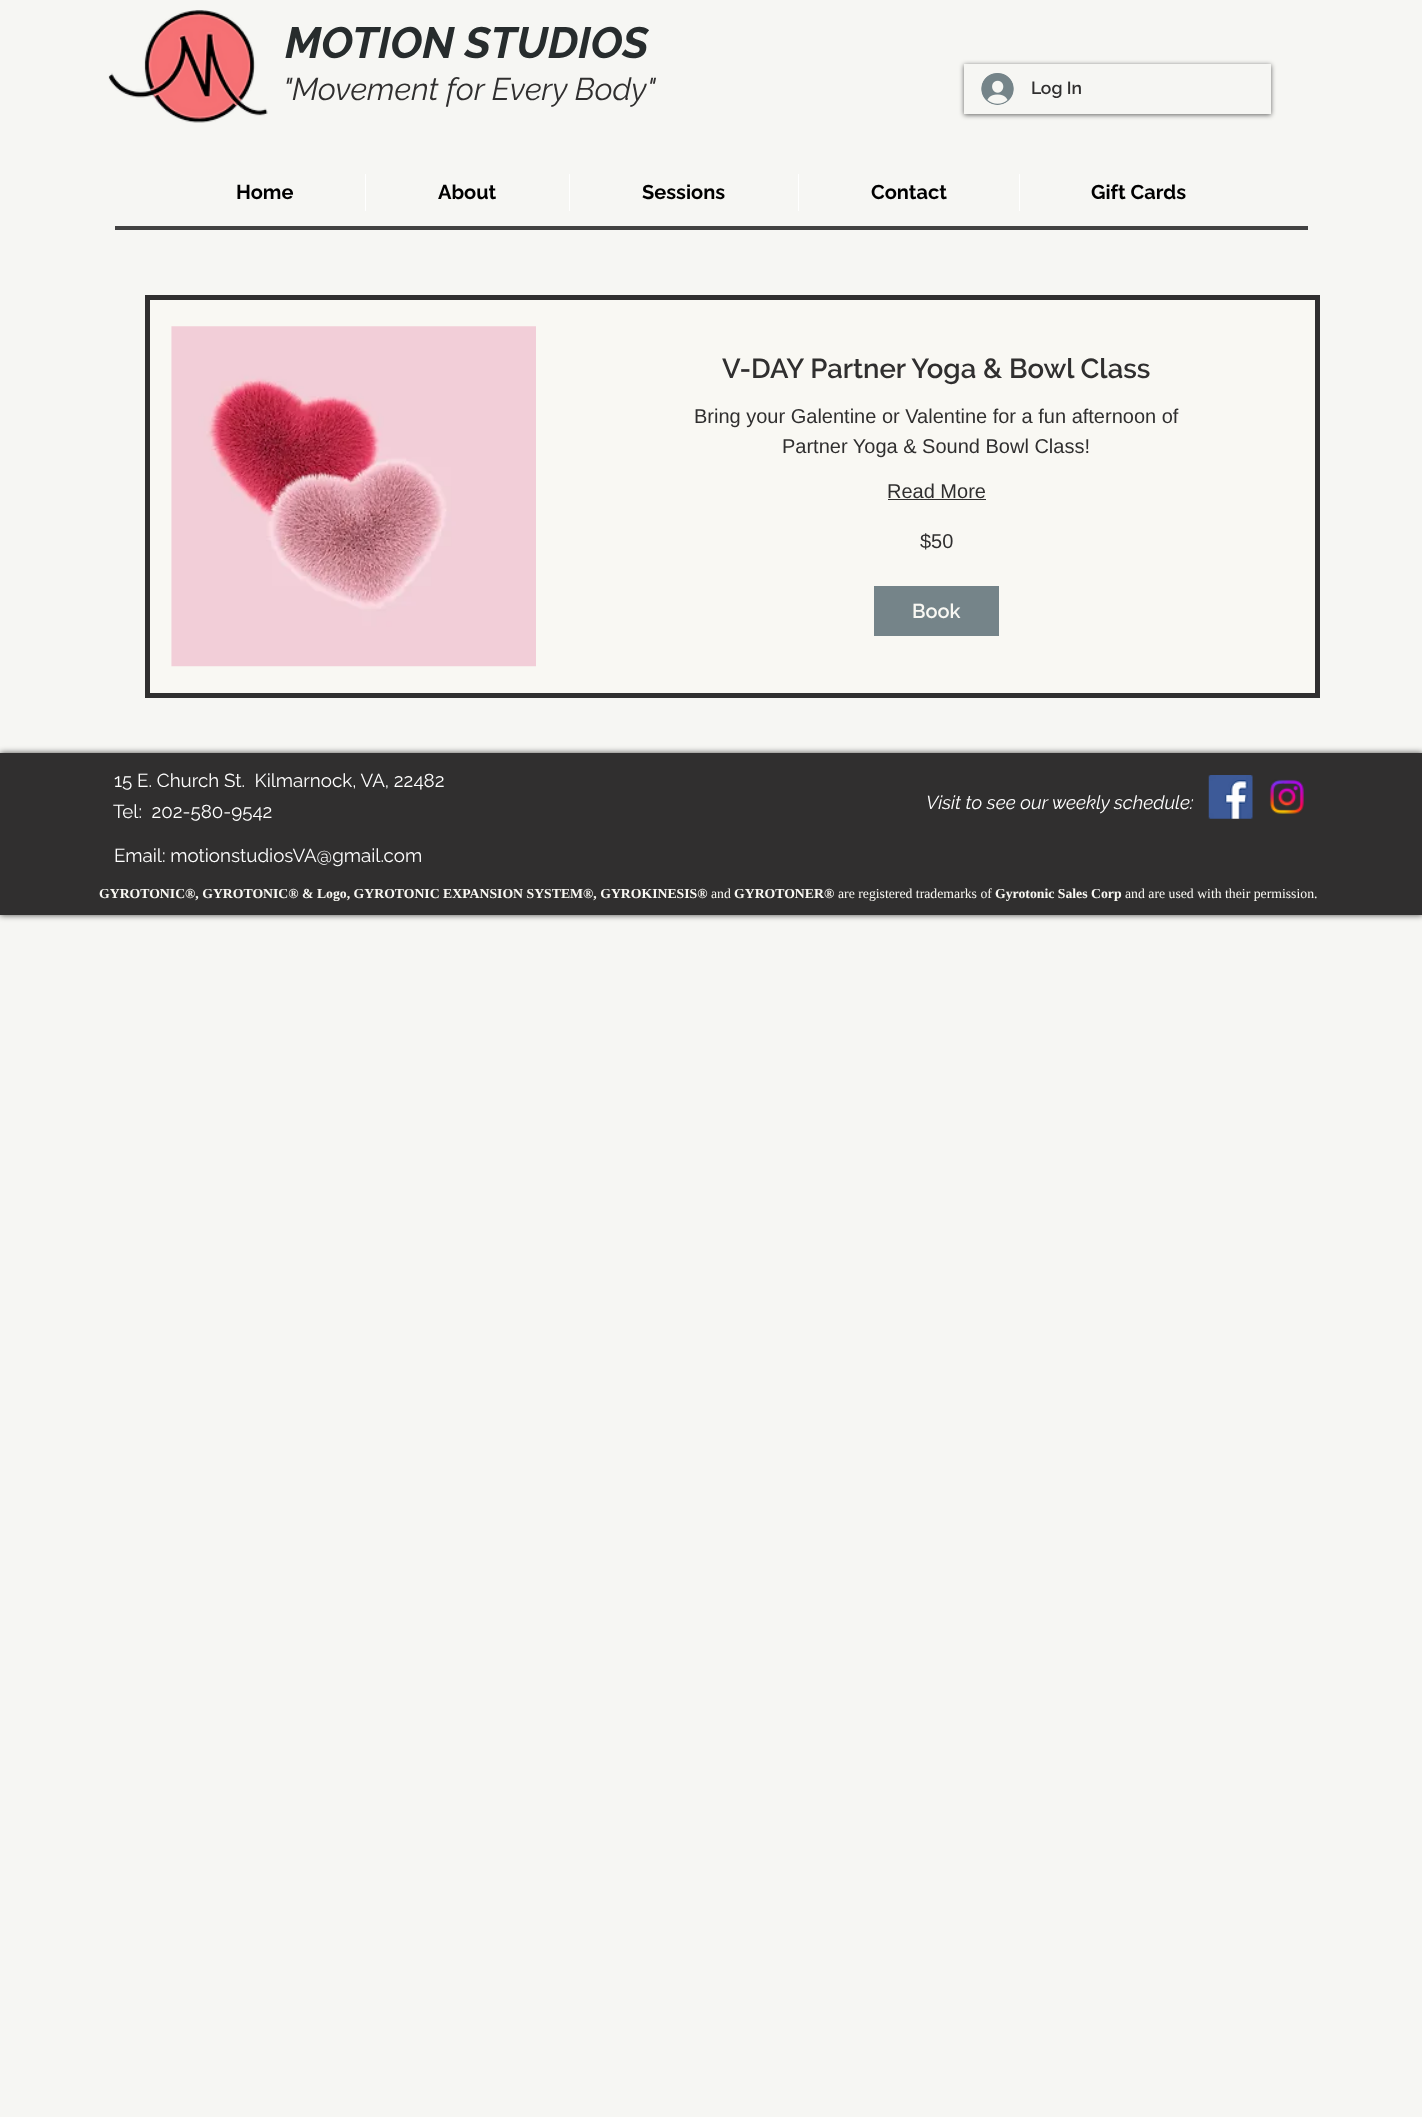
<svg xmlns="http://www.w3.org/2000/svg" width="1422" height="2117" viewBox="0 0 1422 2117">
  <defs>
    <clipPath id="clip1"><path d="M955 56H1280V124H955ZM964 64H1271V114H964Z" clip-rule="evenodd"/></clipPath>
  </defs>
  <rect width="100%" height="100%" fill="#f6f6f3"/>
  <image x="108" y="10" width="160" height="113" href="img/1.png"/>
  <g clip-path="url(#clip1)">
    <path d="M964 65h307v50H964z" fill="#00000099" filter="blur(2.5px)"/>
  </g>
  <image x="981" y="73" width="33" height="32" href="img/2.png"/>
  <path d="M365 174h1v37H365z" fill="#fff"/>
  <path d="M569 174h1v37H569z" fill="#fff"/>
  <path d="M798 174h1v37H798z" fill="#fff"/>
  <path d="M1019 174h1v37H1019z" fill="#fff"/>
  <path d="M115 226h1193v4H115z" fill="#424242"/>
  <path d="M147.5 297.5h1170v398H147.5z" fill="#f9f8f3" stroke="#302f2f" stroke-width="5"/>
  <image x="171" y="326" width="365" height="341" href="img/3.png"/>
  <path d="M888 499h98v1H888z" fill="#302f2f"/>
  <path d="M874 586h125v50H874z" fill="#758489"/>
  <path d="M0 753h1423v162H0z" fill="#000000b3" filter="blur(3px)"/>
  <path d="M0 753h1422v162H0z" fill="#302f2f"/>
  <image x="1208" y="775" width="45" height="44" href="img/4.png"/>
  <image x="1269" y="779" width="35" height="35" href="img/5.png"/>
  <text x="285" y="58" font-family="Raleway" font-size="43.75" font-weight="bold" font-style="italic" fill="#272c2d">MOTION STUDIOS</text>
  <text x="283" y="100" font-family="Raleway" font-size="31.25" font-style="italic" fill="#302f2f">"Movement for Every Body"</text>
  <text x="1031" y="94" font-family="Raleway" font-size="17.5" font-weight="600" fill="#302f2f">Log In</text>
  <g font-family="Raleway" font-size="20" font-weight="bold" fill="#000">
    <text x="236" y="199">Home</text>
    <text x="438" y="199">About</text>
    <text x="642" y="199">Sessions</text>
    <text x="871" y="199">Contact</text>
    <text x="1091" y="199">Gift Cards</text>
  </g>
  <text x="722" y="378" font-family="Raleway" font-size="27.5" font-weight="600" fill="#302f2f">V-DAY Partner Yoga &amp; Bowl Class</text>
  <g font-family="Liberation Sans" font-size="20" fill="#302f2f">
    <text x="694" y="423">Bring your Galentine or Valentine for a fun afternoon of</text>
    <text x="782" y="453">Partner Yoga &amp; Sound Bowl Class!</text>
    <text x="887" y="498">Read More</text>
    <text x="920" y="548">$50</text>
  </g>
  <text x="912" y="618" font-family="Raleway" font-size="20" font-weight="600" fill="#f9f8f3">Book</text>
  <text x="114" y="787" font-family="Raleway" font-size="18.75" fill="#fff" xml:space="preserve">15 E. Church St.  Kilmarnock, VA, 22482</text>
  <text x="926" y="809" font-family="Raleway" font-size="18.75" font-style="italic" fill="#fff">Visit to see our weekly schedule:</text>
  <g font-family="Raleway" font-size="18.75" fill="#fff">
    <text x="113" y="818" xml:space="preserve">Tel:  202-580-9542</text>
    <text x="114" y="862">Email: motionstudiosVA@gmail.com</text>
  </g>
  <text x="99" y="898" font-family="Liberation Serif" font-size="13.75" font-weight="bold" fill="#f9f8f3">GYROTONIC®, GYROTONIC® &amp; Logo, GYROTONIC EXPANSION SYSTEM®, GYROKINESIS®</text>
  <text x="711" y="898" font-family="Liberation Serif" font-size="13.75" fill="#f9f8f3">and</text>
  <text x="734" y="898" font-family="Liberation Serif" font-size="13.75" font-weight="bold" fill="#f9f8f3">GYROTONER®</text>
  <text x="838" y="898" font-family="Liberation Serif" font-size="13.75" fill="#f9f8f3">are registered trademarks of</text>
  <text x="995" y="898" font-family="Liberation Serif" font-size="13.75" font-weight="bold" fill="#f9f8f3">Gyrotonic Sales Corp</text>
  <text x="1125" y="898" font-family="Liberation Serif" font-size="13.75" fill="#f9f8f3">and are used with their permission.</text>
</svg>
